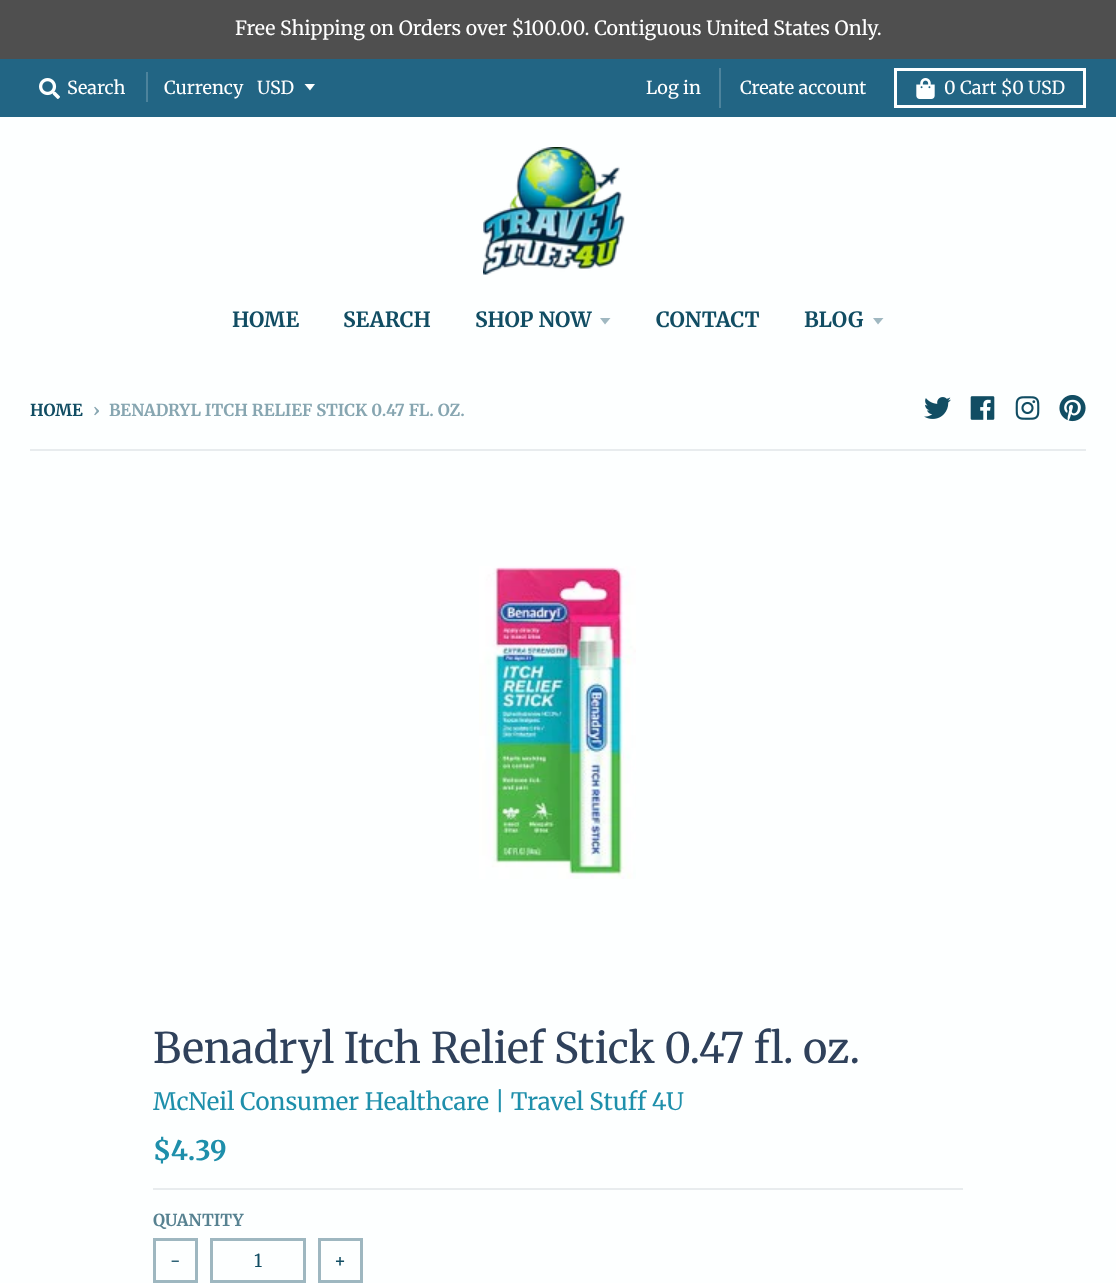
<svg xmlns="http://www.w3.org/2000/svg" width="1116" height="1283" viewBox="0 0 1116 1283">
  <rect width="100%" height="100%" fill="#fdffff"/>
  <path d="M0 0h1116v59H0z" fill="#4f4f4f"/>
  <path d="M0 59h1116v58H0z" fill="#226584"/>
  <image x="39" y="78" width="21" height="21" href="img/1.png"/>
  <path d="M146 72h2v30H146z" fill="#4d839c"/>
  <path d="M304.5 84L310 90.5L315 84Z" fill="#fdffff"/>
  <path d="M719 68h2v40H719z" fill="#4d839c"/>
  <path d="M895.5 69.5h189v37H895.5z" fill="none" stroke="#fdffff" stroke-width="3"/>
  <image x="916" y="78" width="19" height="21" href="img/2.png"/>
  <image x="483" y="147" width="142" height="128" href="img/3.png"/>
  <path d="M600 318L605 324.5L610.5 318Z" fill="#a0b8c1"/>
  <path d="M873 318L878 324.5L883.5 318Z" fill="#a0b8c1"/>
  <image x="924" y="397" width="27" height="22" href="img/4.png"/>
  <image x="970" y="396" width="25" height="24" href="img/5.png"/>
  <image x="1015" y="396" width="25" height="24" href="img/6.png"/>
  <image x="1059" y="395" width="27" height="27" href="img/7.png"/>
  <path d="M30 449h1056v2H30z" fill="#e8ecee"/>
  <image x="479" y="566" width="157" height="313" href="img/8.png"/>
  <path d="M153 1188h810v2H153z" fill="#e8ecee"/>
  <path d="M154.5 1239.5h42v42H154.5z" fill="none" stroke="#9eb7c0" stroke-width="3"/>
  <path d="M211.5 1239.5h93v42H211.5z" fill="none" stroke="#9eb7c0" stroke-width="3"/>
  <path d="M319.5 1239.5h42v42H319.5z" fill="none" stroke="#9eb7c0" stroke-width="3"/>
  <text x="235" y="35" font-family="'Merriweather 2'" font-size="19.5" fill="#fff">Free Shipping on Orders over $100.00. Contiguous United States Only.</text>
  <g font-family="'Merriweather 2'" font-size="18" fill="#fff">
    <text x="67" y="94">Search</text>
    <text x="164" y="94">Currency</text>
    <text x="257" y="94">USD</text>
    <text x="646" y="94">Log in</text>
    <text x="740" y="94">Create account</text>
    <text x="944" y="94">0 Cart $0 USD</text>
  </g>
  <g font-family="Merriweather" font-size="21" font-weight="bold" fill="#114d63">
    <text x="232" y="327">HOME</text>
    <text x="343" y="327">SEARCH</text>
    <text x="475" y="327">SHOP NOW</text>
    <text x="656" y="327">CONTACT</text>
    <text x="804" y="327">BLOG</text>
  </g>
  <text x="30" y="416" font-family="Merriweather" font-size="16.5" font-weight="bold" fill="#114d63">HOME</text>
  <g font-family="Merriweather" font-size="16.5" font-weight="bold" fill="#87a6b1">
    <text x="93" y="416">›</text>
    <text x="109" y="416">BENADRYL ITCH RELIEF STICK 0.47 FL. OZ.</text>
  </g>
  <text x="153" y="1063" font-family="Merriweather" font-size="42" fill="#2f415b">Benadryl Itch Relief Stick 0.47 fl. oz.</text>
  <text x="153" y="1110" font-family="'Merriweather 2'" font-size="24" fill="#1e8fab">McNeil Consumer Healthcare | Travel Stuff 4U</text>
  <text x="153" y="1160" font-family="Merriweather" font-size="27" font-weight="bold" fill="#1e8fab">$4.39</text>
  <text x="153" y="1226" font-family="Merriweather" font-size="16.5" font-weight="bold" fill="#578291">QUANTITY</text>
  <g font-family="'Merriweather 2'" font-size="18" fill="#114d63">
    <text x="170" y="1267">-</text>
    <text x="254" y="1267">1</text>
    <text x="334" y="1267">+</text>
  </g>
</svg>
